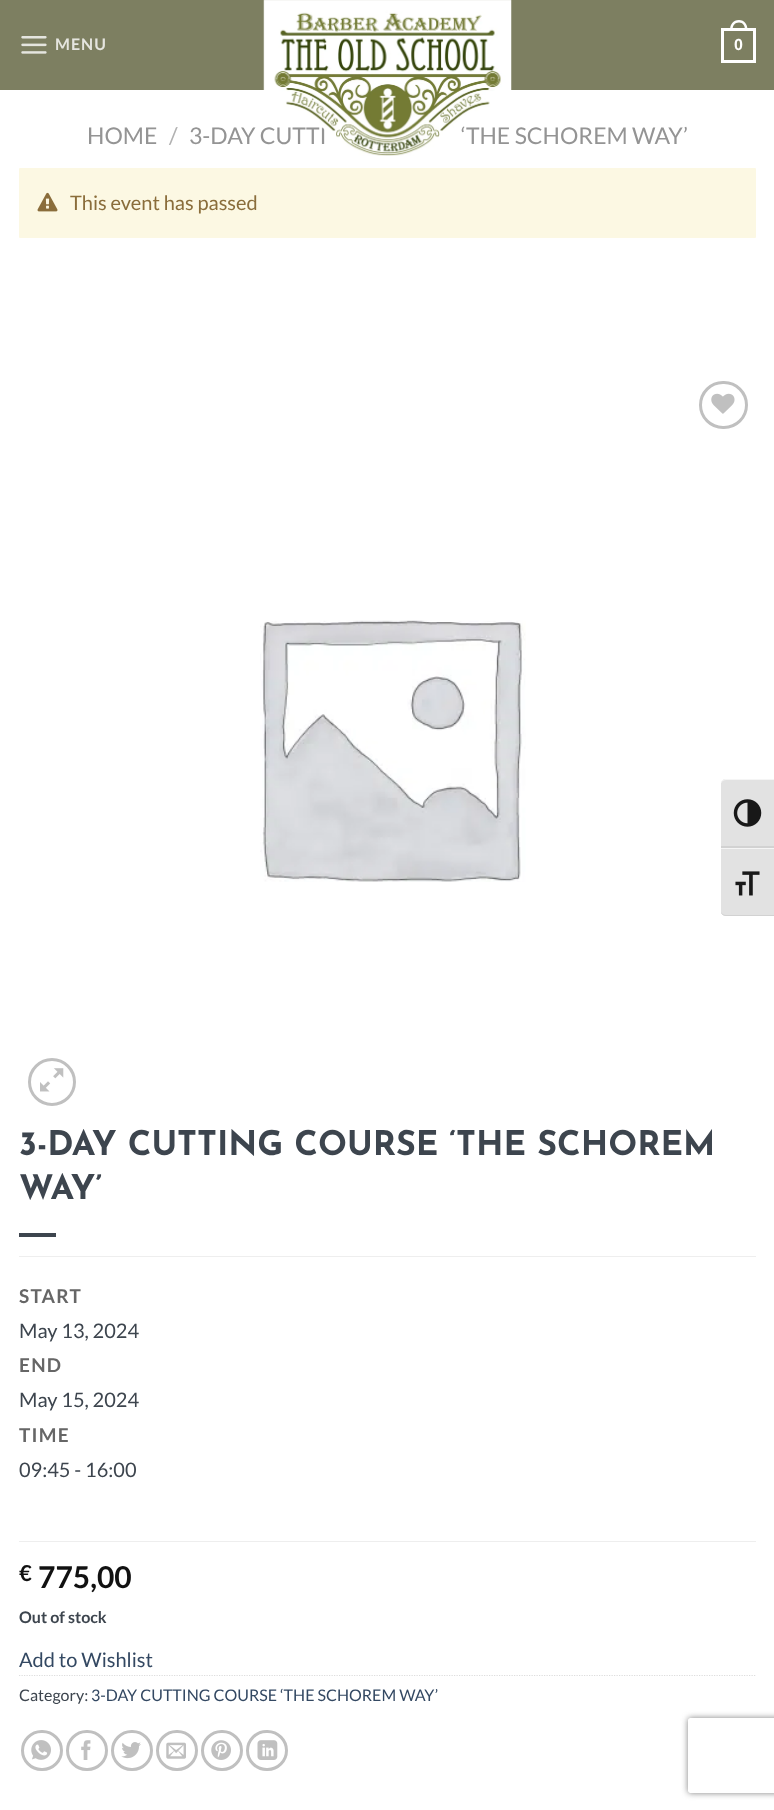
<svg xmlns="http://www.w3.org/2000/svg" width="774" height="1810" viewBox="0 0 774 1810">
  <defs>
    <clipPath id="clip1"><path d="M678 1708H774V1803H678ZM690.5 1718H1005.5C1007 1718 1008 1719 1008 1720.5V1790.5C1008 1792 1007 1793 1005.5 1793H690.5C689 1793 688 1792 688 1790.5V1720.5C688 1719 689 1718 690.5 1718Z" clip-rule="evenodd"/></clipPath>
  </defs>
  <rect width="100%" height="100%" fill="#fff"/>
  <path d="M0 0h774v90H0z" fill="#7d7f61"/>
  <image x="21" y="36" width="26" height="18" href="img/1.png"/>
  <path d="M722.5 29.5h32v32H722.5z" fill="none" stroke="#fff" stroke-width="3"/>
  <path d="M739 20C744.5 20 747.5 24.5 747.5 30H730C730 24.5 733 20 739 20ZM739 22.5C743 22.5 745 26 745 30H732.5C732.5 26 734.5 22.5 739 22.5Z" fill="#fff" fill-rule="evenodd"/>
  <rect x="19" y="168" width="737" height="70" rx="1" fill="#fcf8e3"/>
  <image x="37" y="192" width="21" height="20" href="img/3.png"/>
  <rect x="700.5" y="382.5" width="46" height="45" rx="22.5" fill="none" stroke="#c0c0c0" stroke-width="3"/>
  <image x="711" y="393" width="24" height="21" href="img/4.png"/>
  <image x="260" y="620" width="266" height="262" href="img/5.png"/>
  <circle cx="52" cy="1082" r="22.5" fill="none" stroke="#c0c0c0" stroke-width="3"/>
  <image x="40" y="1068" width="24" height="24" href="img/6.png"/>
  <path d="M19 1233h37v4H19z" fill="#3d454e"/>
  <path d="M19 1256h737v1H19z" fill="#eee"/>
  <path d="M19 1541h737v1H19z" fill="#eee"/>
  <path d="M19 1675.5H756" fill="none" stroke="#ddd" stroke-width="1.2" stroke-dasharray="1.25 1.25"/>
  <rect x="22.5" y="1731.5" width="39" height="38" rx="19" fill="none" stroke="#c0c0c0" stroke-width="3"/>
  <image x="31" y="1740" width="20" height="20" href="img/7.png"/>
  <rect x="67.5" y="1731.5" width="39" height="38" rx="19" fill="none" stroke="#c0c0c0" stroke-width="3"/>
  <image x="81" y="1740" width="10" height="20" href="img/8.png"/>
  <rect x="112.5" y="1731.5" width="39" height="38" rx="19" fill="none" stroke="#c0c0c0" stroke-width="3"/>
  <image x="121" y="1742" width="20" height="17" href="img/9.png"/>
  <rect x="157.5" y="1731.5" width="39" height="38" rx="19" fill="none" stroke="#c0c0c0" stroke-width="3"/>
  <image x="166" y="1742" width="20" height="17" href="img/10.png"/>
  <rect x="202.5" y="1731.5" width="39" height="38" rx="19" fill="none" stroke="#c0c0c0" stroke-width="3"/>
  <image x="211" y="1740" width="20" height="20" href="img/11.png"/>
  <rect x="247.5" y="1731.5" width="39" height="38" rx="19" fill="none" stroke="#c0c0c0" stroke-width="3"/>
  <image x="257" y="1740" width="21" height="20" href="img/12.png"/>
  <path d="M726 779H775V848H721V784C721 781 723 779 726 779Z" fill="#e2e2e2"/>
  <path d="M726 779H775V780H726C724 780 722 781 721 783C721 780 724 779 726 779Z" fill="#f5f5f5"/>
  <path d="M721 846h53v2H721z" fill="#d2d2d2"/>
  <image x="733" y="799" width="29" height="28" href="img/13.png"/>
  <path d="M721 848H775V916H726C723 916 721 914 721 911Z" fill="#e2e2e2"/>
  <path d="M721 848h53v1H721z" fill="#f5f5f5"/>
  <path d="M721 913V912C722 914 724 915 726 915H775V916H726C724 916 722 915 721 913Z" fill="#d2d2d2"/>
  <image x="735" y="871" width="25" height="25" href="img/14.png"/>
  <g clip-path="url(#clip1)">
    <rect x="688" y="1718" width="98" height="75" rx="2.5" fill="#808080" filter="blur(3px)"/>
  </g>
  <text x="55" y="50" font-family="Lato" font-size="16" font-weight="bold" letter-spacing="1" fill="#e5e5df">MENU</text>
  <text x="734" y="50" font-family="Liberation Sans" font-size="16" font-weight="bold" fill="#fff">0</text>
  <text x="87" y="144" font-family="Lato" font-size="23" fill="#949494">HOME</text>
  <text x="169" y="144" font-family="Lato" font-size="23" fill="#b2b2b2">/</text>
  <g font-family="Lato" font-size="23" fill="#949494">
    <text x="189" y="144">3-DAY CUTTI</text>
    <text x="461" y="144">‘THE SCHOREM WAY’</text>
  </g>
  <image x="263" y="0" width="249" height="156" href="img/2.png"/>
  <text x="70" y="210" font-family="Lato" font-size="20" fill="#8a6d3b">This event has passed</text>
  <g font-family="Josefin Sans" font-size="34" font-weight="100" fill="#3d454e">
    <text x="19" y="1155">3-DAY CUTTING COURSE ‘THE SCHOREM</text>
    <text x="19" y="1199">WAY’</text>
  </g>
  <text x="19" y="1303" font-family="Lato" font-size="19" font-weight="bold" letter-spacing="1.25" fill="#666">START</text>
  <text x="19" y="1338" font-family="Lato" font-size="20" fill="#3d454e">May 13, 2024</text>
  <text x="19" y="1372" font-family="Lato" font-size="19" font-weight="bold" letter-spacing="1.25" fill="#666">END</text>
  <text x="19" y="1407" font-family="Lato" font-size="20" fill="#3d454e">May 15, 2024</text>
  <text x="19" y="1442" font-family="Lato" font-size="19" font-weight="bold" letter-spacing="1.25" fill="#666">TIME</text>
  <text x="19" y="1477" font-family="Lato" font-size="20" fill="#3d454e">09:45 - 16:00</text>
  <text x="19" y="1581" font-family="Lato" font-size="22" font-weight="bold" fill="#111">€</text>
  <text x="38" y="1588" font-family="Lato" font-size="30" font-weight="bold" fill="#111">775,00</text>
  <text x="19" y="1623" font-family="Lato" font-size="16" font-weight="bold" fill="#3d454e">Out of stock</text>
  <text x="19" y="1667" font-family="Lato" font-size="20" fill="#334862">Add to Wishlist</text>
  <text x="19" y="1701" font-family="Lato" font-size="16" fill="#3d454e">Category:</text>
  <text x="91" y="1701" font-family="Lato" font-size="16" fill="#334862">3-DAY CUTTING COURSE ‘THE SCHOREM WAY’</text>
</svg>
